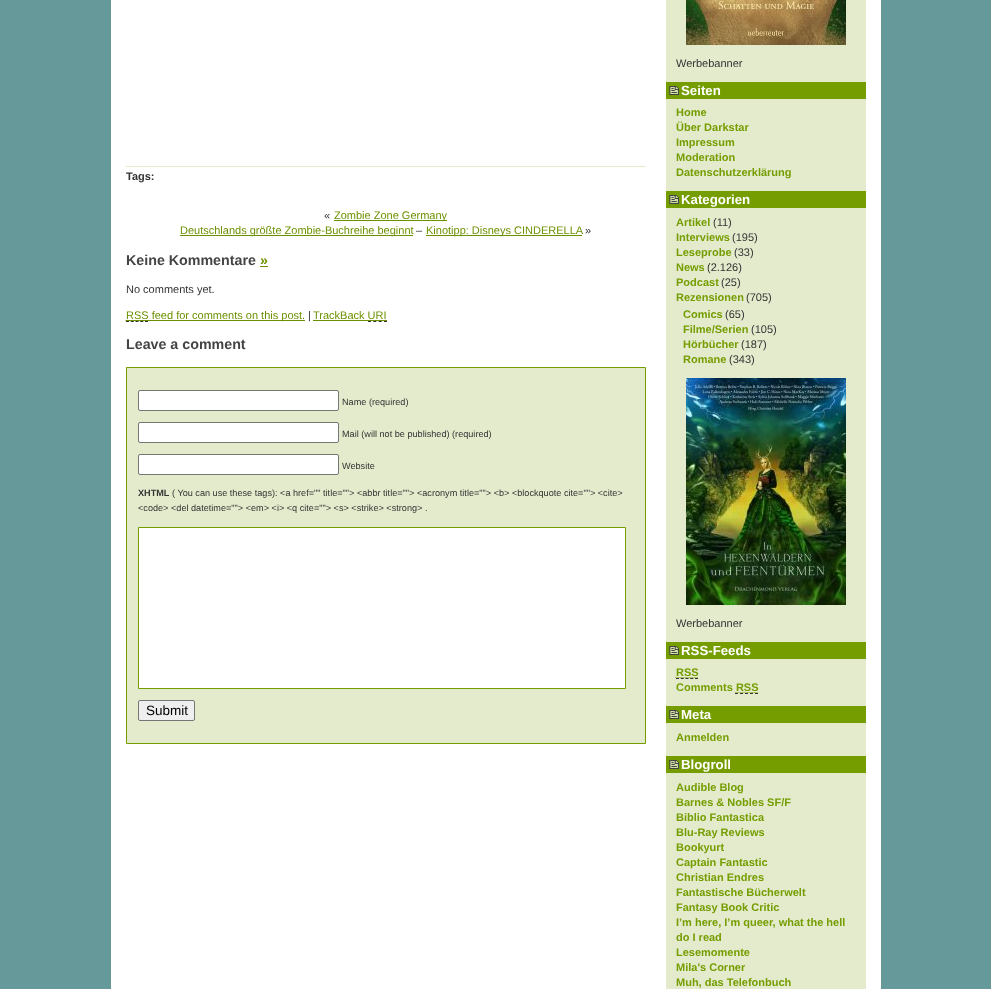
<svg xmlns="http://www.w3.org/2000/svg" width="991" height="989" viewBox="0 0 991 989">
  <rect width="100%" height="100%" fill="#699"/>
  <path d="M111 0h770v989H111z" fill="#fff"/>
  <path d="M126 166h520v1H126z" fill="#e3ebcc"/>
  <path d="M334 220h113v1H334z" fill="#6c9100"/>
  <path d="M180 235h233v1H180z" fill="#6c9100"/>
  <path d="M426 235h156v1H426z" fill="#6c9100"/>
  <path d="M260 266h8v1H260z" fill="#6c9100"/>
  <path d="M126 321.5H148" fill="none" stroke="#333" stroke-dasharray="3 1.75"/>
  <path d="M125.5 320.5H148" fill="none" stroke="#6c9100" stroke-dasharray="1 1"/>
  <path d="M126 320h179v1H126z" fill="#6c9100"/>
  <path d="M313 320h74v1H313z" fill="#6c9100"/>
  <path d="M368 321.5H387" fill="none" stroke="#333" stroke-dasharray="3 2.33"/>
  <path d="M126.5 367.5h519v376H126.5z" fill="#e3ebcc" stroke="#759d00"/>
  <rect x="138.5" y="390.5" width="200" height="20" rx="1.5" fill="#fff" stroke="#767676"/>
  <rect x="138.5" y="422.5" width="200" height="20" rx="1.5" fill="#fff" stroke="#767676"/>
  <rect x="138.5" y="454.5" width="200" height="20" rx="1.5" fill="#fff" stroke="#767676"/>
  <path d="M138.5 527.5h487v161H138.5z" fill="#fff" stroke="#759d00"/>
  <rect x="138.5" y="700.5" width="56" height="20" rx="1.5" fill="#efefef" stroke="#767676"/>
  <path d="M666 0h200v989H666z" fill="#e3ebcc"/>
  <image x="686" y="0" width="160" height="45" href="img/1.png"/>
  <path d="M666 82h200v17H666z" fill="#759d00"/>
  <image x="669" y="86" width="10" height="9" href="img/2.png"/>
  <path d="M666 191h200v17H666z" fill="#759d00"/>
  <image x="669" y="195" width="10" height="9" href="img/2.png"/>
  <image x="686" y="378" width="160" height="227" href="img/3.png"/>
  <path d="M666 642h200v17H666z" fill="#759d00"/>
  <image x="669" y="646" width="10" height="9" href="img/2.png"/>
  <path d="M676 678.5H698" fill="none" stroke="#333" stroke-dasharray="3 1.75"/>
  <path d="M675.5 677.5H698" fill="none" stroke="#759d00" stroke-dasharray="1 1"/>
  <path d="M735 693.5H758" fill="none" stroke="#333" stroke-dasharray="3 2"/>
  <path d="M735.5 692.5H758" fill="none" stroke="#759d00" stroke-dasharray="1 1"/>
  <path d="M666 706h200v17H666z" fill="#759d00"/>
  <image x="669" y="710" width="10" height="9" href="img/2.png"/>
  <path d="M666 756h200v17H666z" fill="#759d00"/>
  <image x="669" y="760" width="10" height="9" href="img/2.png"/>
  <text x="126" y="180" font-family="Liberation Sans" font-size="11" font-weight="bold" fill="#333">Tags:</text>
  <text x="324" y="219" font-family="Liberation Sans" font-size="11" fill="#333">«</text>
  <g font-family="Liberation Sans" font-size="11" fill="#6c9100">
    <text x="334" y="219">Zombie Zone Germany</text>
    <text x="180" y="234">Deutschlands größte Zombie-Buchreihe beginnt</text>
  </g>
  <text x="416" y="234" font-family="Liberation Sans" font-size="11" fill="#333">–</text>
  <text x="426" y="234" font-family="Liberation Sans" font-size="11" fill="#6c9100">Kinotipp: Disneys CINDERELLA</text>
  <text x="585" y="234" font-family="Liberation Sans" font-size="11" fill="#333">»</text>
  <text x="126" y="265" font-family="Liberation Sans" font-size="14.25" font-weight="bold" fill="#444">Keine Kommentare</text>
  <text x="260" y="265" font-family="Liberation Sans" font-size="14.25" font-weight="bold" fill="#6c9100">»</text>
  <text x="126" y="293" font-family="Liberation Sans" font-size="11" fill="#333">No comments yet.</text>
  <text x="126" y="319" font-family="Liberation Sans" font-size="11" fill="#6c9100">RSS feed for comments on this post.</text>
  <text x="308" y="319" font-family="Liberation Sans" font-size="11" fill="#333">|</text>
  <text x="313" y="319" font-family="Liberation Sans" font-size="11" fill="#6c9100">TrackBack URI</text>
  <text x="126" y="349" font-family="Liberation Sans" font-size="14.25" font-weight="bold" fill="#444">Leave a comment</text>
  <g font-family="Liberation Sans" font-size="9.15" fill="#333">
    <text x="342" y="405">Name (required)</text>
    <text x="342" y="437">Mail (will not be published) (required)</text>
    <text x="342" y="469">Website</text>
  </g>
  <text x="138" y="496" font-family="Liberation Sans" font-size="9.15" font-weight="bold" fill="#333">XHTML</text>
  <g font-family="Liberation Sans" font-size="9.15" fill="#333">
    <text x="172" y="496">( You can use these tags): &lt;a href="" title=""&gt; &lt;abbr title=""&gt; &lt;acronym title=""&gt; &lt;b&gt; &lt;blockquote cite=""&gt; &lt;cite&gt;</text>
    <text x="138" y="511">&lt;code&gt; &lt;del datetime=""&gt; &lt;em&gt; &lt;i&gt; &lt;q cite=""&gt; &lt;s&gt; &lt;strike&gt; &lt;strong&gt; .</text>
  </g>
  <text x="146" y="715" font-family="Liberation Sans" font-size="13.5" fill="#000">Submit</text>
  <text x="676" y="67" font-family="Liberation Sans" font-size="11" fill="#333">Werbebanner</text>
  <text x="681" y="95" font-family="Liberation Sans" font-size="13.25" font-weight="bold" fill="#fff">Seiten</text>
  <g font-family="Liberation Sans" font-size="11" font-weight="bold" fill="#759d00">
    <text x="676" y="116">Home</text>
    <text x="676" y="131">Über Darkstar</text>
    <text x="676" y="146">Impressum</text>
    <text x="676" y="161">Moderation</text>
    <text x="676" y="176">Datenschutzerklärung</text>
  </g>
  <text x="681" y="204" font-family="Liberation Sans" font-size="13.25" font-weight="bold" fill="#fff">Kategorien</text>
  <text x="676" y="226" font-family="Liberation Sans" font-size="11" font-weight="bold" fill="#759d00">Artikel</text>
  <text x="713" y="226" font-family="Liberation Sans" font-size="11" fill="#333">(11)</text>
  <text x="676" y="241" font-family="Liberation Sans" font-size="11" font-weight="bold" fill="#759d00">Interviews</text>
  <text x="732" y="241" font-family="Liberation Sans" font-size="11" fill="#333">(195)</text>
  <text x="676" y="256" font-family="Liberation Sans" font-size="11" font-weight="bold" fill="#759d00">Leseprobe</text>
  <text x="734" y="256" font-family="Liberation Sans" font-size="11" fill="#333">(33)</text>
  <text x="676" y="271" font-family="Liberation Sans" font-size="11" font-weight="bold" fill="#759d00">News</text>
  <text x="707" y="271" font-family="Liberation Sans" font-size="11" fill="#333">(2.126)</text>
  <text x="676" y="286" font-family="Liberation Sans" font-size="11" font-weight="bold" fill="#759d00">Podcast</text>
  <text x="721" y="286" font-family="Liberation Sans" font-size="11" fill="#333">(25)</text>
  <text x="676" y="301" font-family="Liberation Sans" font-size="11" font-weight="bold" fill="#759d00">Rezensionen</text>
  <text x="746" y="301" font-family="Liberation Sans" font-size="11" fill="#333">(705)</text>
  <text x="683" y="318" font-family="Liberation Sans" font-size="11" font-weight="bold" fill="#759d00">Comics</text>
  <text x="725" y="318" font-family="Liberation Sans" font-size="11" fill="#333">(65)</text>
  <text x="683" y="333" font-family="Liberation Sans" font-size="11" font-weight="bold" fill="#759d00">Filme/Serien</text>
  <text x="751" y="333" font-family="Liberation Sans" font-size="11" fill="#333">(105)</text>
  <text x="683" y="348" font-family="Liberation Sans" font-size="11" font-weight="bold" fill="#759d00">Hörbücher</text>
  <text x="741" y="348" font-family="Liberation Sans" font-size="11" fill="#333">(187)</text>
  <text x="683" y="363" font-family="Liberation Sans" font-size="11" font-weight="bold" fill="#759d00">Romane</text>
  <g font-family="Liberation Sans" font-size="11" fill="#333">
    <text x="729" y="363">(343)</text>
    <text x="676" y="627">Werbebanner</text>
  </g>
  <text x="681" y="655" font-family="Liberation Sans" font-size="13.25" font-weight="bold" fill="#fff">RSS-Feeds</text>
  <g font-family="Liberation Sans" font-size="11" font-weight="bold" fill="#759d00">
    <text x="676" y="676">RSS</text>
    <text x="676" y="691">Comments RSS</text>
  </g>
  <text x="681" y="719" font-family="Liberation Sans" font-size="13.25" font-weight="bold" fill="#fff">Meta</text>
  <text x="676" y="741" font-family="Liberation Sans" font-size="11" font-weight="bold" fill="#759d00">Anmelden</text>
  <text x="681" y="769" font-family="Liberation Sans" font-size="13.25" font-weight="bold" fill="#fff">Blogroll</text>
  <g font-family="Liberation Sans" font-size="11" font-weight="bold" fill="#759d00">
    <text x="676" y="791">Audible Blog</text>
    <text x="676" y="806">Barnes &amp; Nobles SF/F</text>
    <text x="676" y="821">Biblio Fantastica</text>
    <text x="676" y="836">Blu-Ray Reviews</text>
    <text x="676" y="851">Bookyurt</text>
    <text x="676" y="866">Captain Fantastic</text>
    <text x="676" y="881">Christian Endres</text>
    <text x="676" y="896">Fantastische Bücherwelt</text>
    <text x="676" y="911">Fantasy Book Critic</text>
    <text x="676" y="926">I’m here, I’m queer, what the hell</text>
    <text x="676" y="941">do I read</text>
    <text x="676" y="956">Lesemomente</text>
    <text x="676" y="971">Mila's Corner</text>
    <text x="676" y="986">Muh, das Telefonbuch</text>
  </g>
</svg>
